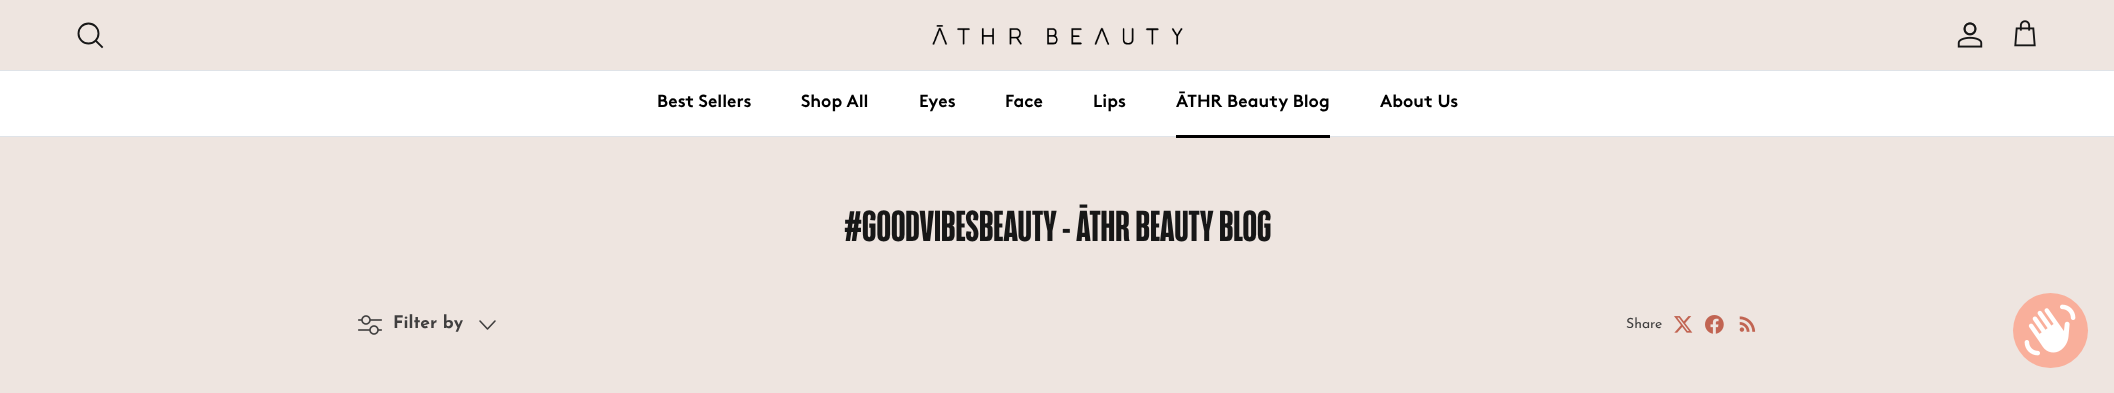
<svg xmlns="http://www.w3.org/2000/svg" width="2114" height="393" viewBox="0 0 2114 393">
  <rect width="100%" height="100%" fill="#eee5e0"/>
  <path d="M0 70h2114v1H0z" fill="#dfe3e8"/>
  <circle cx="88.5" cy="33.5" r="10" fill="none" stroke="#171717" stroke-width="1.9"/>
  <path d="M96 41L102 47" fill="none" stroke="#171717" stroke-width="1.9" stroke-linecap="square"/>
  <image x="932" y="25" width="251" height="20" href="img/1.png"/>
  <image x="1957" y="22" width="26" height="26" href="img/2.png"/>
  <image x="2014" y="20" width="22" height="27" href="img/3.png"/>
  <path d="M0 136h2114v1H0z" fill="#dfe3e8"/>
  <path d="M0 71h2114v65H0z" fill="#fff"/>
  <path d="M1176 135h154v3H1176z" fill="#000"/>
  <image x="358" y="315" width="24" height="20" href="img/4.png"/>
  <path d="M480 321L487.5 329L495 321" fill="none" stroke="#403f3f" stroke-width="1.6" stroke-linecap="round" stroke-linejoin="round"/>
  <image x="1674" y="316" width="19" height="17" href="img/5.png"/>
  <image x="1705" y="315" width="19" height="19" href="img/6.png"/>
  <image x="1739" y="316" width="17" height="16" href="img/7.png"/>
  <circle cx="2050.5" cy="330.5" r="37.5" fill="#f9af9b"/>
  <image x="2024" y="304" width="52" height="52" href="img/8.png"/>
  <g font-family="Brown" font-size="17.5" font-weight="bold" fill="#000">
    <text x="657" y="107">Best Sellers</text>
    <text x="801" y="107">Shop All</text>
    <text x="919" y="107">Eyes</text>
    <text x="1005" y="107">Face</text>
    <text x="1093" y="107">Lips</text>
    <text x="1176" y="107">ĀTHR Beauty Blog</text>
    <text x="1380" y="107">About Us</text>
  </g>
  <text x="844" y="241" font-family="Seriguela" font-size="42.5" font-weight="bold" fill="#171717">#GOODVIBESBEAUTY - ĀTHR BEAUTY BLOG</text>
  <text x="393" y="328" font-family="Josefin Sans" font-size="17.5" font-weight="bold" fill="#403f3f">Filter by</text>
  <text x="1626" y="328" font-family="Josefin Sans" font-size="14" fill="#403f3f">Share</text>
</svg>
